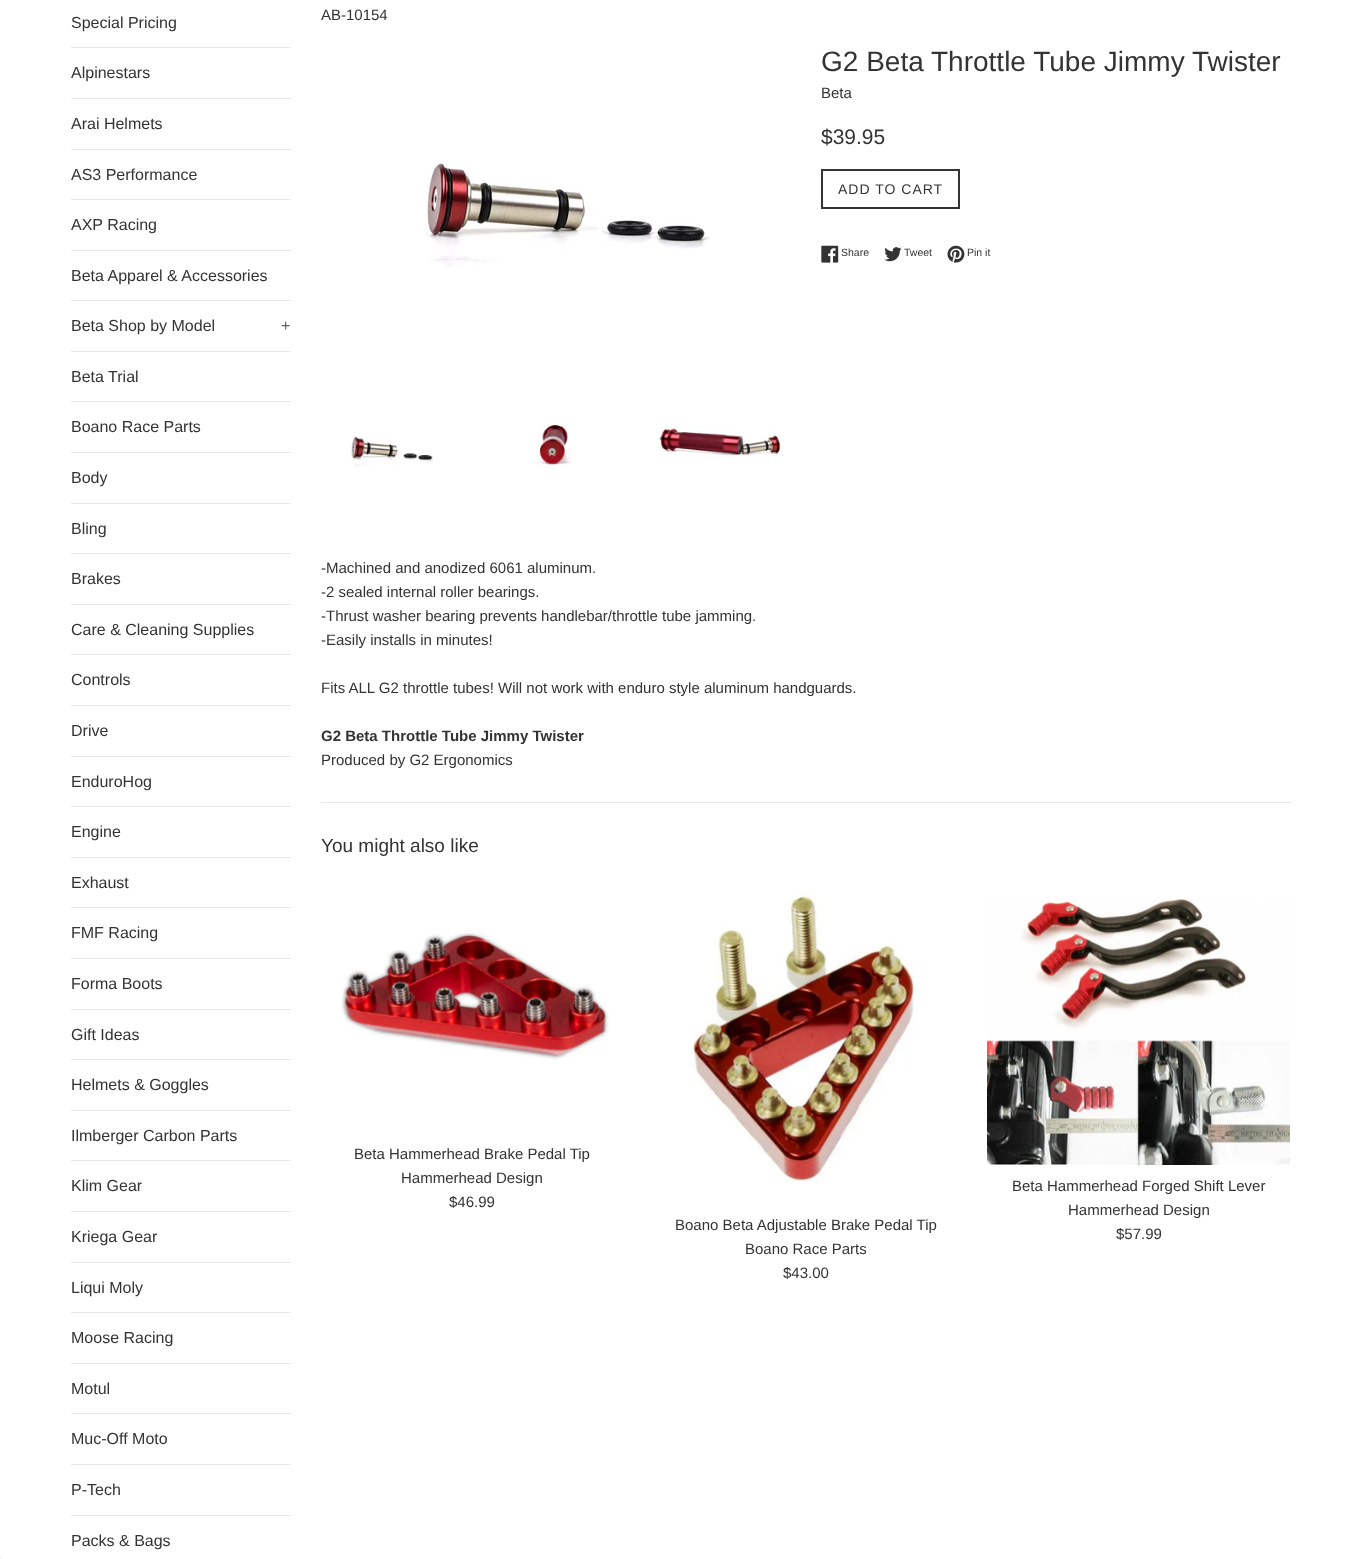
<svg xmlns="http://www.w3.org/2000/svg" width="1361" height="1559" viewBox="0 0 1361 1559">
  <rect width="100%" height="100%" fill="#fff"/>
  <path d="M71 47h220v1H71z" fill="#e8e8e8"/>
  <path d="M71 98h220v1H71z" fill="#e8e8e8"/>
  <path d="M71 149h220v1H71z" fill="#e8e8e8"/>
  <path d="M71 199h220v1H71z" fill="#e8e8e8"/>
  <path d="M71 250h220v1H71z" fill="#e8e8e8"/>
  <path d="M71 300h220v1H71z" fill="#e8e8e8"/>
  <path d="M71 351h220v1H71z" fill="#e8e8e8"/>
  <path d="M71 401h220v1H71z" fill="#e8e8e8"/>
  <path d="M71 452h220v1H71z" fill="#e8e8e8"/>
  <path d="M71 503h220v1H71z" fill="#e8e8e8"/>
  <path d="M71 553h220v1H71z" fill="#e8e8e8"/>
  <path d="M71 604h220v1H71z" fill="#e8e8e8"/>
  <path d="M71 654h220v1H71z" fill="#e8e8e8"/>
  <path d="M71 705h220v1H71z" fill="#e8e8e8"/>
  <path d="M71 756h220v1H71z" fill="#e8e8e8"/>
  <path d="M71 806h220v1H71z" fill="#e8e8e8"/>
  <path d="M71 857h220v1H71z" fill="#e8e8e8"/>
  <path d="M71 907h220v1H71z" fill="#e8e8e8"/>
  <path d="M71 958h220v1H71z" fill="#e8e8e8"/>
  <path d="M71 1009h220v1H71z" fill="#e8e8e8"/>
  <path d="M71 1059h220v1H71z" fill="#e8e8e8"/>
  <path d="M71 1110h220v1H71z" fill="#e8e8e8"/>
  <path d="M71 1160h220v1H71z" fill="#e8e8e8"/>
  <path d="M71 1211h220v1H71z" fill="#e8e8e8"/>
  <path d="M71 1262h220v1H71z" fill="#e8e8e8"/>
  <path d="M71 1312h220v1H71z" fill="#e8e8e8"/>
  <path d="M71 1363h220v1H71z" fill="#e8e8e8"/>
  <path d="M71 1413h220v1H71z" fill="#e8e8e8"/>
  <path d="M71 1464h220v1H71z" fill="#e8e8e8"/>
  <path d="M71 1515h220v1H71z" fill="#e8e8e8"/>
  <image x="425" y="163" width="285" height="104" href="img/1.png"/>
  <image x="348" y="436" width="85" height="31" href="img/2.png"/>
  <image x="532" y="424" width="40" height="43" href="img/3.png"/>
  <image x="659" y="424" width="124" height="35" href="img/4.png"/>
  <path d="M822 170h137v38H822z" fill="none" stroke="#333" stroke-width="2"/>
  <image x="821" y="245" width="18" height="18" href="img/5.png"/>
  <image x="884" y="247" width="18" height="15" href="img/6.png"/>
  <image x="947" y="245" width="18" height="18" href="img/7.png"/>
  <path d="M321 802h970v1H321z" fill="#e8e8e8"/>
  <image x="341" y="932" width="268" height="128" href="img/8.png"/>
  <image x="987" y="898" width="303" height="267" href="img/9.png"/>
  <image x="691" y="892" width="226" height="291" href="img/10.png"/>
  <path d="M0 1557h2v2H0z" fill="#f5f5f5"/>
  <g font-family="Liberation Sans" font-size="16" fill="#333">
    <text x="71" y="28">Special Pricing</text>
    <text x="71" y="78">Alpinestars</text>
    <text x="71" y="129">Arai Helmets</text>
    <text x="71" y="180">AS3 Performance</text>
    <text x="71" y="230">AXP Racing</text>
    <text x="71" y="281">Beta Apparel &amp; Accessories</text>
    <text x="71" y="331">Beta Shop by Model</text>
  </g>
  <text x="281" y="331" font-family="Liberation Sans" font-size="16" fill="#5c5c5c">+</text>
  <g font-family="Liberation Sans" font-size="16" fill="#333">
    <text x="71" y="382">Beta Trial</text>
    <text x="71" y="432">Boano Race Parts</text>
    <text x="71" y="483">Body</text>
    <text x="71" y="534">Bling</text>
    <text x="71" y="584">Brakes</text>
    <text x="71" y="635">Care &amp; Cleaning Supplies</text>
    <text x="71" y="685">Controls</text>
    <text x="71" y="736">Drive</text>
    <text x="71" y="787">EnduroHog</text>
    <text x="71" y="837">Engine</text>
    <text x="71" y="888">Exhaust</text>
    <text x="71" y="938">FMF Racing</text>
    <text x="71" y="989">Forma Boots</text>
    <text x="71" y="1040">Gift Ideas</text>
    <text x="71" y="1090">Helmets &amp; Goggles</text>
    <text x="71" y="1141">Ilmberger Carbon Parts</text>
    <text x="71" y="1191">Klim Gear</text>
    <text x="71" y="1242">Kriega Gear</text>
    <text x="71" y="1293">Liqui Moly</text>
    <text x="71" y="1343">Moose Racing</text>
    <text x="71" y="1394">Motul</text>
    <text x="71" y="1444">Muc-Off Moto</text>
    <text x="71" y="1495">P-Tech</text>
    <text x="71" y="1546">Packs &amp; Bags</text>
  </g>
  <text x="321" y="20" font-family="Liberation Sans" font-size="15" fill="#333">AB-10154</text>
  <text x="821" y="71" font-family="Liberation Sans" font-size="28" fill="#333">G2 Beta Throttle Tube Jimmy Twister</text>
  <text x="821" y="98" font-family="Liberation Sans" font-size="15" fill="#333">Beta</text>
  <text x="821" y="144" font-family="Liberation Sans" font-size="21" fill="#333">$39.95</text>
  <text x="838" y="194" font-family="Liberation Sans" font-size="14" letter-spacing="1" fill="#333">ADD TO CART</text>
  <g font-family="Liberation Sans" font-size="10.5" fill="#333">
    <text x="841" y="256">Share</text>
    <text x="904" y="256">Tweet</text>
    <text x="967" y="256">Pin it</text>
  </g>
  <g font-family="Liberation Sans" font-size="15" fill="#333">
    <text x="321" y="573">-Machined and anodized 6061 aluminum.</text>
    <text x="321" y="597">-2 sealed internal roller bearings.</text>
    <text x="321" y="621">-Thrust washer bearing prevents handlebar/throttle tube jamming.</text>
    <text x="321" y="645">-Easily installs in minutes!</text>
    <text x="321" y="693">Fits ALL G2 throttle tubes! Will not work with enduro style aluminum handguards.</text>
  </g>
  <text x="321" y="741" font-family="Liberation Sans" font-size="15" font-weight="bold" fill="#333">G2 Beta Throttle Tube Jimmy Twister</text>
  <text x="321" y="765" font-family="Liberation Sans" font-size="15" fill="#333">Produced by G2 Ergonomics</text>
  <text x="321" y="852" font-family="Liberation Sans" font-size="19" fill="#333">You might also like</text>
  <g font-family="Liberation Sans" font-size="15" fill="#333">
    <text x="354" y="1159">Beta Hammerhead Brake Pedal Tip</text>
    <text x="401" y="1183">Hammerhead Design</text>
    <text x="449" y="1207">$46.99</text>
    <text x="1012" y="1191">Beta Hammerhead Forged Shift Lever</text>
    <text x="1068" y="1215">Hammerhead Design</text>
    <text x="1116" y="1239">$57.99</text>
    <text x="675" y="1230">Boano Beta Adjustable Brake Pedal Tip</text>
    <text x="745" y="1254">Boano Race Parts</text>
    <text x="783" y="1278">$43.00</text>
  </g>
</svg>
